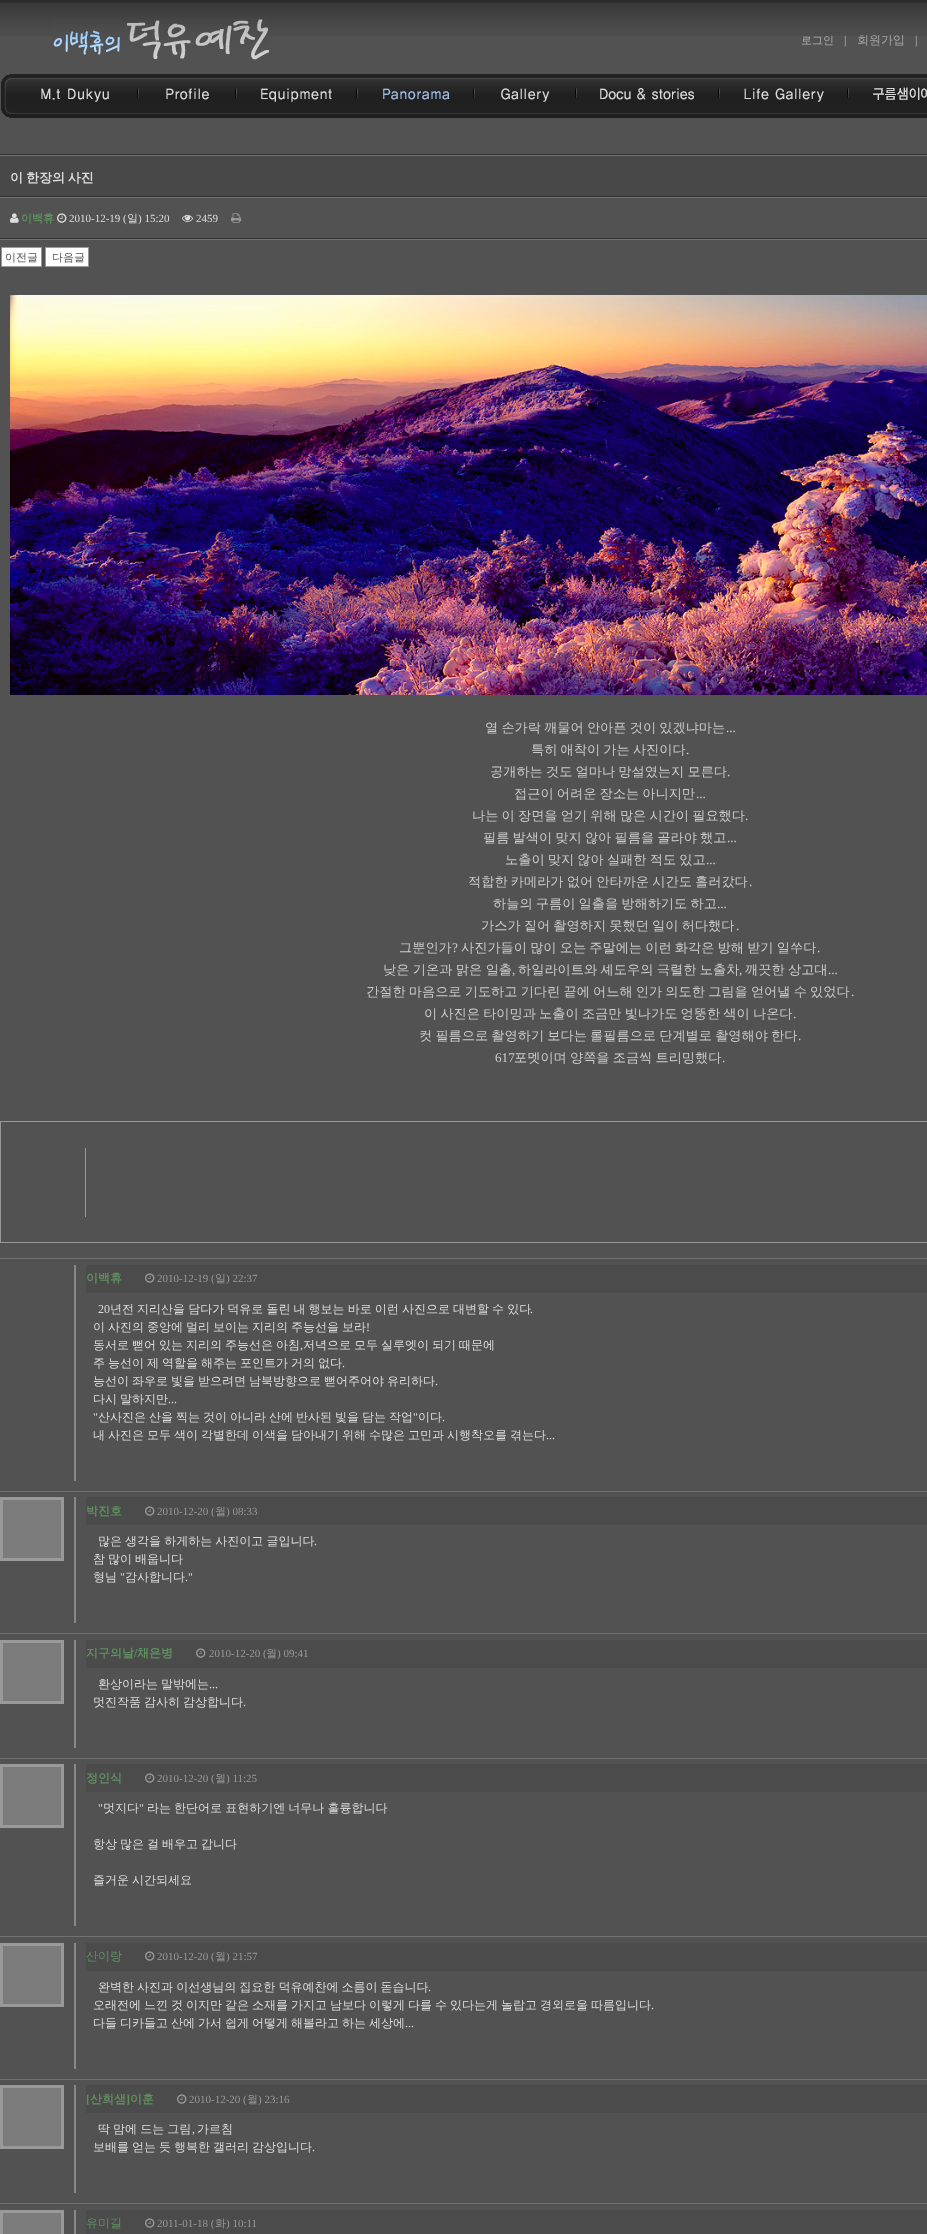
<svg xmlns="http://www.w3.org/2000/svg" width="927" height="2234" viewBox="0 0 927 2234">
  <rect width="100%" height="100%" fill="#525252"/>
  <image x="0" y="3" width="927" height="33" href="img/1.png"/>
  <path d="M0 0h927v3H0z" fill="#2c2c2c"/>
  <image x="53" y="19" width="216" height="41" href="img/2.png"/>
  <image x="1" y="74" width="926" height="44" href="img/3.png"/>
  <image x="41" y="88" width="68" height="14" href="img/4.png"/>
  <image x="137" y="88" width="2" height="10" href="img/5.png"/>
  <image x="166" y="88" width="43" height="12" href="img/6.png"/>
  <image x="235" y="88" width="2" height="10" href="img/5.png"/>
  <image x="261" y="88" width="71" height="14" href="img/7.png"/>
  <image x="356" y="88" width="2" height="10" href="img/5.png"/>
  <image x="383" y="88" width="67" height="12" href="img/8.png"/>
  <image x="473" y="88" width="2" height="10" href="img/5.png"/>
  <image x="501" y="88" width="49" height="14" href="img/9.png"/>
  <image x="575" y="88" width="2" height="10" href="img/5.png"/>
  <image x="600" y="88" width="94" height="12" href="img/10.png"/>
  <image x="718" y="88" width="2" height="10" href="img/5.png"/>
  <image x="744" y="88" width="80" height="14" href="img/11.png"/>
  <image x="847" y="88" width="2" height="10" href="img/5.png"/>
  <image x="873" y="87" width="54" height="13" href="img/12.png"/>
  <path d="M0 154h927v1H0z" fill="#323232"/>
  <path d="M0 155h927v1H0z" fill="#727272"/>
  <path d="M0 156h927v40H0z" fill="#484848"/>
  <path d="M0 196h927v1H0z" fill="#323232"/>
  <path d="M0 197h927v1H0z" fill="#727272"/>
  <image x="10" y="213" width="9" height="10" href="img/13.png"/>
  <image x="57" y="213" width="10" height="10" href="img/14.png"/>
  <image x="182" y="214" width="11" height="8" href="img/15.png"/>
  <image x="231" y="213" width="11" height="10" href="img/16.png"/>
  <path d="M0 238h927v1H0z" fill="#323232"/>
  <path d="M0 239h927v1H0z" fill="#727272"/>
  <path d="M1.5 247.5h40v19H1.5z" fill="#fff" stroke="#999"/>
  <path d="M45.5 247.5h43v19H45.5z" fill="#fff" stroke="#999"/>
  <image x="10" y="295" width="917" height="400" href="img/17.png"/>
  <path d="M0 1121h927v1H0z" fill="#999"/>
  <path d="M0 1242h927v1H0z" fill="#999"/>
  <path d="M0 1121h1v122H0z" fill="#999"/>
  <path d="M85 1148h1v69H85z" fill="#999"/>
  <path d="M0 1258h927v1H0z" fill="#727272"/>
  <path d="M74 1265h2v216H74z" fill="#888"/>
  <path d="M86 1265h841v28H86z" fill="#4b4b4b"/>
  <image x="145" y="1273" width="10" height="10" href="img/18.png"/>
  <path d="M0 1491h927v1H0z" fill="#727272"/>
  <path d="M1.5 1498.5h61v61H1.5z" fill="none" stroke="#999" stroke-width="3"/>
  <path d="M3 1500h58v58H3z" fill="#7c7c7c"/>
  <path d="M74 1497h2v126H74z" fill="#888"/>
  <path d="M86 1497h841v28H86z" fill="#4b4b4b"/>
  <image x="145" y="1506" width="10" height="10" href="img/18.png"/>
  <path d="M0 1633h927v1H0z" fill="#727272"/>
  <path d="M1.5 1641.5h61v61H1.5z" fill="none" stroke="#999" stroke-width="3"/>
  <path d="M3 1643h58v58H3z" fill="#7c7c7c"/>
  <path d="M74 1640h2v108H74z" fill="#888"/>
  <path d="M86 1640h841v28H86z" fill="#4b4b4b"/>
  <image x="196" y="1648" width="10" height="10" href="img/18.png"/>
  <path d="M0 1758h927v1H0z" fill="#727272"/>
  <path d="M1.5 1765.5h61v61H1.5z" fill="none" stroke="#999" stroke-width="3"/>
  <path d="M3 1767h58v58H3z" fill="#7c7c7c"/>
  <path d="M74 1764h2v162H74z" fill="#888"/>
  <path d="M86 1764h841v28H86z" fill="#4b4b4b"/>
  <image x="145" y="1773" width="10" height="10" href="img/18.png"/>
  <path d="M0 1936h927v1H0z" fill="#727272"/>
  <path d="M1.5 1944.5h61v61H1.5z" fill="none" stroke="#999" stroke-width="3"/>
  <path d="M3 1946h58v58H3z" fill="#7c7c7c"/>
  <path d="M74 1943h2v126H74z" fill="#888"/>
  <path d="M86 1943h841v28H86z" fill="#4b4b4b"/>
  <image x="145" y="1951" width="10" height="10" href="img/18.png"/>
  <path d="M0 2079h927v1H0z" fill="#727272"/>
  <path d="M1.5 2086.5h61v61H1.5z" fill="none" stroke="#999" stroke-width="3"/>
  <path d="M3 2088h58v58H3z" fill="#7c7c7c"/>
  <path d="M74 2085h2v108H74z" fill="#888"/>
  <path d="M86 2085h841v28H86z" fill="#4b4b4b"/>
  <image x="177" y="2094" width="10" height="10" href="img/18.png"/>
  <path d="M0 2203h927v1H0z" fill="#727272"/>
  <path d="M1.5 2211.5h61v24H1.5z" fill="none" stroke="#999" stroke-width="3"/>
  <path d="M3 2213h58v21H3z" fill="#7c7c7c"/>
  <path d="M74 2210h2v24H74z" fill="#888"/>
  <path d="M86 2210h841v24H86z" fill="#4b4b4b"/>
  <image x="145" y="2218" width="10" height="10" href="img/18.png"/>
  <text x="801" y="44" font-family="WenQuanYi Zen Hei" font-size="11" font-weight="500" fill="#afafaf">로그인</text>
  <text x="844" y="44" font-family="Liberation Serif" font-size="12" fill="#bbb">|</text>
  <text x="857" y="44" font-family="WenQuanYi Zen Hei" font-size="12" font-weight="500" fill="#a5a5a5">회원가입</text>
  <text x="915" y="44" font-family="Liberation Serif" font-size="12" fill="#bbb">|</text>
  <text x="10" y="182" word-spacing="-1" font-family="WenQuanYi Zen Hei" font-size="13" font-weight="bold" fill="#ddd">이 한장의 사진</text>
  <text x="21" y="222" font-family="WenQuanYi Zen Hei" font-size="11" font-weight="bold" fill="#609060">이백휴</text>
  <text x="69" y="222" font-family="Liberation Serif" font-size="11" fill="#ddd">2010-12-19 (</text>
  <text x="127" y="222" font-family="WenQuanYi Zen Hei" font-size="11" font-weight="500" fill="#ddd">일</text>
  <g font-family="Liberation Serif" font-size="11" fill="#ddd">
    <text x="138" y="222">) 15:20</text>
    <text x="196" y="222">2459</text>
  </g>
  <g font-family="WenQuanYi Zen Hei" font-size="11" font-weight="500" fill="#555">
    <text x="5" y="261">이전글</text>
    <text x="52" y="261">다음글</text>
  </g>
  <text x="485" y="732" word-spacing="-0.75" font-family="WenQuanYi Zen Hei" font-size="13.2" font-weight="500" fill="#ccc">열 손가락 깨물어 안아픈 것이 있겠냐마는</text>
  <text x="726" y="732" font-family="Liberation Serif" font-size="13.2" fill="#ccc">...</text>
  <text x="531" y="754" word-spacing="-0.75" font-family="WenQuanYi Zen Hei" font-size="13.2" font-weight="500" fill="#ccc">특히 애착이 가는 사진이다</text>
  <text x="686" y="754" font-family="Liberation Serif" font-size="13.2" fill="#ccc">.</text>
  <text x="490" y="776" word-spacing="-0.75" font-family="WenQuanYi Zen Hei" font-size="13.2" font-weight="500" fill="#ccc">공개하는 것도 얼마나 망설였는지 모른다</text>
  <text x="727" y="776" font-family="Liberation Serif" font-size="13.2" fill="#ccc">.</text>
  <text x="514" y="798" word-spacing="-0.75" font-family="WenQuanYi Zen Hei" font-size="13.2" font-weight="500" fill="#ccc">접근이 어려운 장소는 아니지만</text>
  <text x="696" y="798" font-family="Liberation Serif" font-size="13.2" fill="#ccc">...</text>
  <text x="472" y="820" word-spacing="-0.75" font-family="WenQuanYi Zen Hei" font-size="13.2" font-weight="500" fill="#ccc">나는 이 장면을 얻기 위해 많은 시간이 필요했다</text>
  <text x="745" y="820" font-family="Liberation Serif" font-size="13.2" fill="#ccc">.</text>
  <text x="483" y="842" word-spacing="-0.75" font-family="WenQuanYi Zen Hei" font-size="13.2" font-weight="500" fill="#ccc">필름 발색이 맞지 않아 필름을 골라야 했고</text>
  <text x="727" y="842" font-family="Liberation Serif" font-size="13.2" fill="#ccc">...</text>
  <text x="505" y="864" word-spacing="-0.75" font-family="WenQuanYi Zen Hei" font-size="13.2" font-weight="500" fill="#ccc">노출이 맞지 않아 실패한 적도 있고</text>
  <text x="706" y="864" font-family="Liberation Serif" font-size="13.2" fill="#ccc">...</text>
  <text x="468" y="886" word-spacing="-0.75" font-family="WenQuanYi Zen Hei" font-size="13.2" font-weight="500" fill="#ccc">적합한 카메라가 없어 안타까운 시간도 흘러갔다</text>
  <text x="749" y="886" font-family="Liberation Serif" font-size="13.2" fill="#ccc">.</text>
  <text x="493" y="908" word-spacing="-0.75" font-family="WenQuanYi Zen Hei" font-size="13.2" font-weight="500" fill="#ccc">하늘의 구름이 일출을 방해하기도 하고</text>
  <text x="717" y="908" font-family="Liberation Serif" font-size="13.2" fill="#ccc">...</text>
  <text x="481" y="930" word-spacing="-0.75" font-family="WenQuanYi Zen Hei" font-size="13.2" font-weight="500" fill="#ccc">가스가 짙어 촬영하지 못했던 일이 허다했다</text>
  <text x="736" y="930" font-family="Liberation Serif" font-size="13.2" fill="#ccc">.</text>
  <text x="399" y="952" font-family="WenQuanYi Zen Hei" font-size="13.2" font-weight="500" fill="#ccc">그뿐인가</text>
  <text x="452" y="952" font-family="Liberation Serif" font-size="13.2" fill="#ccc">?</text>
  <text x="461" y="952" word-spacing="-0.75" font-family="WenQuanYi Zen Hei" font-size="13.2" font-weight="500" fill="#ccc">사진가들이 많이 오는 주말에는 이런 화각은 방해 받기 일쑤다</text>
  <text x="817" y="952" font-family="Liberation Serif" font-size="13.2" fill="#ccc">.</text>
  <text x="383" y="974" word-spacing="-0.5" font-family="WenQuanYi Zen Hei" font-size="13.2" font-weight="500" fill="#ccc">낮은 기온과 맑은 일출</text>
  <text x="512" y="974" font-family="Liberation Serif" font-size="13.2" fill="#ccc">,</text>
  <text x="518" y="974" word-spacing="-0.5" font-family="WenQuanYi Zen Hei" font-size="13.2" font-weight="500" fill="#ccc">하일라이트와 셰도우의 극렬한 노출차</text>
  <text x="739" y="974" font-family="Liberation Serif" font-size="13.2" fill="#ccc">,</text>
  <text x="745" y="974" word-spacing="-0.5" font-family="WenQuanYi Zen Hei" font-size="13.2" font-weight="500" fill="#ccc">깨끗한 상고대</text>
  <text x="828" y="974" font-family="Liberation Serif" font-size="13.2" fill="#ccc">...</text>
  <text x="366" y="996" word-spacing="-0.75" font-family="WenQuanYi Zen Hei" font-size="13.2" font-weight="500" fill="#ccc">간절한 마음으로 기도하고 기다린 끝에 어느해 인가 의도한 그림을 얻어낼 수 있었다</text>
  <text x="851" y="996" font-family="Liberation Serif" font-size="13.2" fill="#ccc">.</text>
  <text x="424" y="1018" word-spacing="-0.75" font-family="WenQuanYi Zen Hei" font-size="13.2" font-weight="500" fill="#ccc">이 사진은 타이밍과 노출이 조금만 빛나가도 엉뚱한 색이 나온다</text>
  <text x="793" y="1018" font-family="Liberation Serif" font-size="13.2" fill="#ccc">.</text>
  <text x="419" y="1040" word-spacing="-0.75" font-family="WenQuanYi Zen Hei" font-size="13.2" font-weight="500" fill="#ccc">컷 필름으로 촬영하기 보다는 롤필름으로 단계별로 촬영해야 한다</text>
  <g font-family="Liberation Serif" font-size="13.2" fill="#ccc">
    <text x="798" y="1040">.</text>
    <text x="495" y="1062">617</text>
  </g>
  <text x="514" y="1062" word-spacing="-0.75" font-family="WenQuanYi Zen Hei" font-size="13.2" font-weight="500" fill="#ccc">포멧이며 양쪽을 조금씩 트리밍했다</text>
  <text x="722" y="1062" font-family="Liberation Serif" font-size="13.2" fill="#ccc">.</text>
  <text x="86" y="1282" font-family="WenQuanYi Zen Hei" font-size="12" font-weight="bold" fill="#609060">이백휴</text>
  <text x="157" y="1282" font-family="Liberation Serif" font-size="11" fill="#999">2010-12-19 (</text>
  <text x="215" y="1282" font-family="WenQuanYi Zen Hei" font-size="11" font-weight="500" fill="#999">일</text>
  <text x="226" y="1282" font-family="Liberation Serif" font-size="11" fill="#999">) 22:37</text>
  <text x="98" y="1313" font-family="Liberation Serif" font-size="12" fill="#ddd">20</text>
  <text x="110" y="1313" word-spacing="-0.5" font-family="WenQuanYi Zen Hei" font-size="12" font-weight="500" fill="#ddd">년전 지리산을 담다가 덕유로 돌린 내 행보는 바로 이런 사진으로 대변할 수 있다</text>
  <text x="530" y="1313" font-family="Liberation Serif" font-size="12" fill="#ddd">.</text>
  <text x="93" y="1331" word-spacing="-0.6" font-family="WenQuanYi Zen Hei" font-size="12" font-weight="500" fill="#ddd">이 사진의 중앙에 멀리 보이는 지리의 주능선을 보라</text>
  <text x="366" y="1331" font-family="Liberation Serif" font-size="12" fill="#ddd">!</text>
  <text x="93" y="1349" word-spacing="-0.6" font-family="WenQuanYi Zen Hei" font-size="12" font-weight="500" fill="#ddd">동서로 뻗어 있는 지리의 주능선은 아침</text>
  <text x="300" y="1349" font-family="Liberation Serif" font-size="12" fill="#ddd">,</text>
  <g font-family="WenQuanYi Zen Hei" font-size="12" font-weight="500" fill="#ddd">
    <text x="303" y="1349" word-spacing="-0.6">저녁으로 모두 실루엣이 되기 때문에</text>
    <text x="93" y="1367" word-spacing="-0.6">주 능선이 제 역할을 해주는 포인트가 거의 없다</text>
  </g>
  <text x="342" y="1367" font-family="Liberation Serif" font-size="12" fill="#ddd">.</text>
  <text x="93" y="1385" word-spacing="-0.6" font-family="WenQuanYi Zen Hei" font-size="12" font-weight="500" fill="#ddd">능선이 좌우로 빛을 받으려면 남북방향으로 뻗어주어야 유리하다</text>
  <text x="435" y="1385" font-family="Liberation Serif" font-size="12" fill="#ddd">.</text>
  <text x="93" y="1403" word-spacing="-0.6" font-family="WenQuanYi Zen Hei" font-size="12" font-weight="500" fill="#ddd">다시 말하지만</text>
  <g font-family="Liberation Serif" font-size="12" fill="#ddd">
    <text x="168" y="1403">...</text>
    <text x="93" y="1421">"</text>
  </g>
  <text x="98" y="1421" word-spacing="-0.6" font-family="WenQuanYi Zen Hei" font-size="12" font-weight="500" fill="#ddd">산사진은 산을 찍는 것이 아니라 산에 반사된 빛을 담는 작업</text>
  <text x="413" y="1421" font-family="Liberation Serif" font-size="12" fill="#ddd">"</text>
  <text x="418" y="1421" font-family="WenQuanYi Zen Hei" font-size="12" font-weight="500" fill="#ddd">이다</text>
  <text x="442" y="1421" font-family="Liberation Serif" font-size="12" fill="#ddd">.</text>
  <text x="93" y="1439" word-spacing="-0.6" font-family="WenQuanYi Zen Hei" font-size="12" font-weight="500" fill="#ddd">내 사진은 모두 색이 각별한데 이색을 담아내기 위해 수많은 고민과 시행착오를 겪는다</text>
  <text x="546" y="1439" font-family="Liberation Serif" font-size="12" fill="#ddd">...</text>
  <text x="86" y="1515" font-family="WenQuanYi Zen Hei" font-size="12" font-weight="bold" fill="#609060">박진호</text>
  <text x="157" y="1515" font-family="Liberation Serif" font-size="11" fill="#999">2010-12-20 (</text>
  <text x="215" y="1515" font-family="WenQuanYi Zen Hei" font-size="11" font-weight="500" fill="#999">월</text>
  <text x="226" y="1515" font-family="Liberation Serif" font-size="11" fill="#999">) 08:33</text>
  <text x="98" y="1545" word-spacing="-0.5" font-family="WenQuanYi Zen Hei" font-size="12" font-weight="500" fill="#ddd">많은 생각을 하게하는 사진이고 글입니다</text>
  <text x="314" y="1545" font-family="Liberation Serif" font-size="12" fill="#ddd">.</text>
  <g font-family="WenQuanYi Zen Hei" font-size="12" font-weight="500" fill="#ddd">
    <text x="93" y="1563" word-spacing="-0.6">참 많이 배웁니다</text>
    <text x="93" y="1581">형님</text>
  </g>
  <text x="120" y="1581" font-family="Liberation Serif" font-size="12" fill="#ddd">"</text>
  <text x="125" y="1581" font-family="WenQuanYi Zen Hei" font-size="12" font-weight="500" fill="#ddd">감사합니다</text>
  <text x="185" y="1581" font-family="Liberation Serif" font-size="12" fill="#ddd">."</text>
  <text x="86" y="1657" font-family="WenQuanYi Zen Hei" font-size="12" font-weight="bold" fill="#609060">지구의날</text>
  <text x="134" y="1657" font-family="Liberation Serif" font-size="12" font-weight="bold" fill="#609060">/</text>
  <text x="137" y="1657" font-family="WenQuanYi Zen Hei" font-size="12" font-weight="bold" fill="#609060">채은병</text>
  <text x="209" y="1657" font-family="Liberation Serif" font-size="11" fill="#999">2010-12-20 (</text>
  <text x="266" y="1657" font-family="WenQuanYi Zen Hei" font-size="11" font-weight="500" fill="#999">월</text>
  <text x="277" y="1657" font-family="Liberation Serif" font-size="11" fill="#999">) 09:41</text>
  <text x="98" y="1688" word-spacing="-0.5" font-family="WenQuanYi Zen Hei" font-size="12" font-weight="500" fill="#ddd">환상이라는 말밖에는</text>
  <text x="209" y="1688" font-family="Liberation Serif" font-size="12" fill="#ddd">...</text>
  <text x="93" y="1706" word-spacing="-0.6" font-family="WenQuanYi Zen Hei" font-size="12" font-weight="500" fill="#ddd">멋진작품 감사히 감상합니다</text>
  <text x="243" y="1706" font-family="Liberation Serif" font-size="12" fill="#ddd">.</text>
  <text x="86" y="1782" font-family="WenQuanYi Zen Hei" font-size="12" font-weight="bold" fill="#609060">정인식</text>
  <text x="157" y="1782" font-family="Liberation Serif" font-size="11" fill="#999">2010-12-20 (</text>
  <text x="215" y="1782" font-family="WenQuanYi Zen Hei" font-size="11" font-weight="500" fill="#999">월</text>
  <text x="226" y="1782" font-family="Liberation Serif" font-size="11" fill="#999">) 11:25</text>
  <text x="98" y="1812" font-family="Liberation Serif" font-size="12" fill="#ddd">"</text>
  <text x="103" y="1812" font-family="WenQuanYi Zen Hei" font-size="12" font-weight="500" fill="#ddd">멋지다</text>
  <text x="139" y="1812" font-family="Liberation Serif" font-size="12" fill="#ddd">"</text>
  <g font-family="WenQuanYi Zen Hei" font-size="12" font-weight="500" fill="#ddd">
    <text x="147" y="1812" word-spacing="-0.5">라는 한단어로 표현하기엔 너무나 훌륭합니다</text>
    <text x="93" y="1848" word-spacing="-0.6">항상 많은 걸 배우고 갑니다</text>
    <text x="93" y="1884" word-spacing="-0.6">즐거운 시간되세요</text>
  </g>
  <text x="86" y="1960" font-family="WenQuanYi Zen Hei" font-size="12" font-weight="500" fill="#609060">산이랑</text>
  <text x="157" y="1960" font-family="Liberation Serif" font-size="11" fill="#999">2010-12-20 (</text>
  <text x="215" y="1960" font-family="WenQuanYi Zen Hei" font-size="11" font-weight="500" fill="#999">월</text>
  <text x="226" y="1960" font-family="Liberation Serif" font-size="11" fill="#999">) 21:57</text>
  <text x="98" y="1991" word-spacing="-0.5" font-family="WenQuanYi Zen Hei" font-size="12" font-weight="500" fill="#ddd">완벽한 사진과 이선생님의 집요한 덕유예찬에 소름이 돋습니다</text>
  <text x="428" y="1991" font-family="Liberation Serif" font-size="12" fill="#ddd">.</text>
  <text x="93" y="2009" word-spacing="-0.6" font-family="WenQuanYi Zen Hei" font-size="12" font-weight="500" fill="#ddd">오래전에 느낀 것 이지만 같은 소재를 가지고 남보다 이렇게 다를 수 있다는게 놀랍고 경외로울 따름입니다</text>
  <text x="651" y="2009" font-family="Liberation Serif" font-size="12" fill="#ddd">.</text>
  <text x="93" y="2027" word-spacing="-0.6" font-family="WenQuanYi Zen Hei" font-size="12" font-weight="500" fill="#ddd">다들 디카들고 산에 가서 쉽게 어떻게 해볼라고 하는 세상에</text>
  <text x="405" y="2027" font-family="Liberation Serif" font-size="12" fill="#ddd">...</text>
  <text x="86" y="2103" font-family="Liberation Serif" font-size="12" font-weight="bold" fill="#609060">[</text>
  <text x="90" y="2103" font-family="WenQuanYi Zen Hei" font-size="12" font-weight="bold" fill="#609060">산희샘</text>
  <text x="126" y="2103" font-family="Liberation Serif" font-size="12" font-weight="bold" fill="#609060">]</text>
  <text x="130" y="2103" font-family="WenQuanYi Zen Hei" font-size="12" font-weight="bold" fill="#609060">이훈</text>
  <text x="189" y="2103" font-family="Liberation Serif" font-size="11" fill="#999">2010-12-20 (</text>
  <text x="247" y="2103" font-family="WenQuanYi Zen Hei" font-size="11" font-weight="500" fill="#999">월</text>
  <text x="258" y="2103" font-family="Liberation Serif" font-size="11" fill="#999">) 23:16</text>
  <text x="98" y="2133" word-spacing="-0.5" font-family="WenQuanYi Zen Hei" font-size="12" font-weight="500" fill="#ddd">딱 맘에 드는 그림</text>
  <text x="192" y="2133" font-family="Liberation Serif" font-size="12" fill="#ddd">,</text>
  <g font-family="WenQuanYi Zen Hei" font-size="12" font-weight="500" fill="#ddd">
    <text x="197" y="2133">가르침</text>
    <text x="93" y="2151" word-spacing="-0.6">보배를 얻는 듯 행복한 갤러리 감상입니다</text>
  </g>
  <text x="312" y="2151" font-family="Liberation Serif" font-size="12" fill="#ddd">.</text>
  <text x="86" y="2227" font-family="WenQuanYi Zen Hei" font-size="12" font-weight="500" fill="#609060">유미길</text>
  <text x="157" y="2227" font-family="Liberation Serif" font-size="11" fill="#999">2011-01-18 (</text>
  <text x="215" y="2227" font-family="WenQuanYi Zen Hei" font-size="11" font-weight="500" fill="#999">화</text>
  <text x="226" y="2227" font-family="Liberation Serif" font-size="11" fill="#999">) 10:11</text>
</svg>
